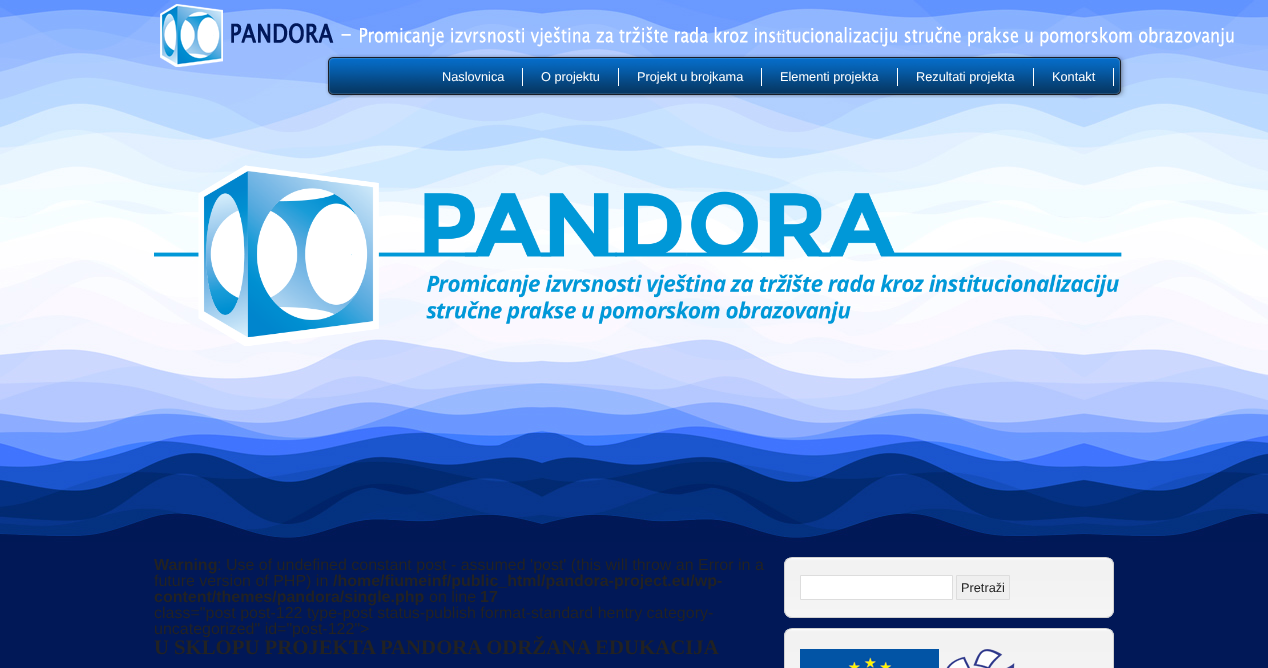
<svg xmlns="http://www.w3.org/2000/svg" width="1268" height="668" viewBox="0 0 1268 668">
  <rect width="100%" height="100%" fill="#011857"/>
  <image x="0" y="0" width="1268" height="542" href="img/1.png"/>
  <image x="160" y="4" width="1074" height="94" href="img/2.png"/>
  <path d="M522 68h1v18H522z" fill="#fff"/>
  <path d="M618 68h1v18H618z" fill="#fff"/>
  <path d="M761 68h1v18H761z" fill="#fff"/>
  <path d="M897 68h1v18H897z" fill="#fff"/>
  <path d="M1033 68h1v18H1033z" fill="#fff"/>
  <path d="M1113 68h1v18H1113z" fill="#fff"/>
  <image x="154" y="165" width="968" height="181" href="img/3.png"/>
  <image x="784" y="558" width="330" height="60" href="img/4.png"/>
  <rect x="784.5" y="557.5" width="329" height="60" rx="7.5" fill="none" stroke="#d1d1d1"/>
  <path d="M800.5 575.5h152v24H800.5z" fill="#fff" stroke="#ddd"/>
  <path d="M956.5 575.5h53v24H956.5z" fill="#efefef" stroke="#ddd"/>
  <image x="784" y="629" width="330" height="39" href="img/5.png"/>
  <rect x="784.5" y="628.5" width="329" height="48" rx="7.5" fill="none" stroke="#d1d1d1"/>
  <image x="800" y="649" width="139" height="19" href="img/6.png"/>
  <image x="946" y="649" width="69" height="19" href="img/7.png"/>
  <g font-family="Liberation Sans" font-size="12.75" fill="#fff">
    <text x="442" y="81">Naslovnica</text>
    <text x="541" y="81">O projektu</text>
    <text x="637" y="81">Projekt u brojkama</text>
    <text x="780" y="81">Elementi projekta</text>
    <text x="916" y="81">Rezultati projekta</text>
    <text x="1052" y="81">Kontakt</text>
  </g>
  <text x="154" y="570" font-family="Liberation Sans" font-size="16" font-weight="bold" fill="#222">Warning</text>
  <g font-family="Liberation Sans" font-size="16" fill="#222">
    <text x="217" y="570">: Use of undefined constant post - assumed 'post' (this will throw an Error in a</text>
    <text x="154" y="586">future version of PHP) in</text>
  </g>
  <g font-family="Liberation Sans" font-size="16" font-weight="bold" fill="#222">
    <text x="333" y="586">/home/fiumeinf/public_html/pandora-project.eu/wp-</text>
    <text x="154" y="602">content/themes/pandora/single.php</text>
  </g>
  <text x="429" y="602" font-family="Liberation Sans" font-size="16" fill="#222">on line</text>
  <text x="480" y="602" font-family="Liberation Sans" font-size="16" font-weight="bold" fill="#222">17</text>
  <g font-family="Liberation Sans" font-size="16" fill="#222">
    <text x="154" y="618">class="post post-122 type-post status-publish format-standard hentry category-</text>
    <text x="154" y="634">uncategorized" id="post-122"&gt;</text>
  </g>
  <text x="154" y="654" word-spacing="-0.25" font-family="Liberation Serif" font-size="20.8" font-weight="bold" fill="#222">U SKLOPU PROJEKTA PANDORA ODRŽANA EDUKACIJA</text>
  <text x="961" y="592" font-family="Liberation Sans" font-size="12.75" fill="#222">Pretraži</text>
</svg>
